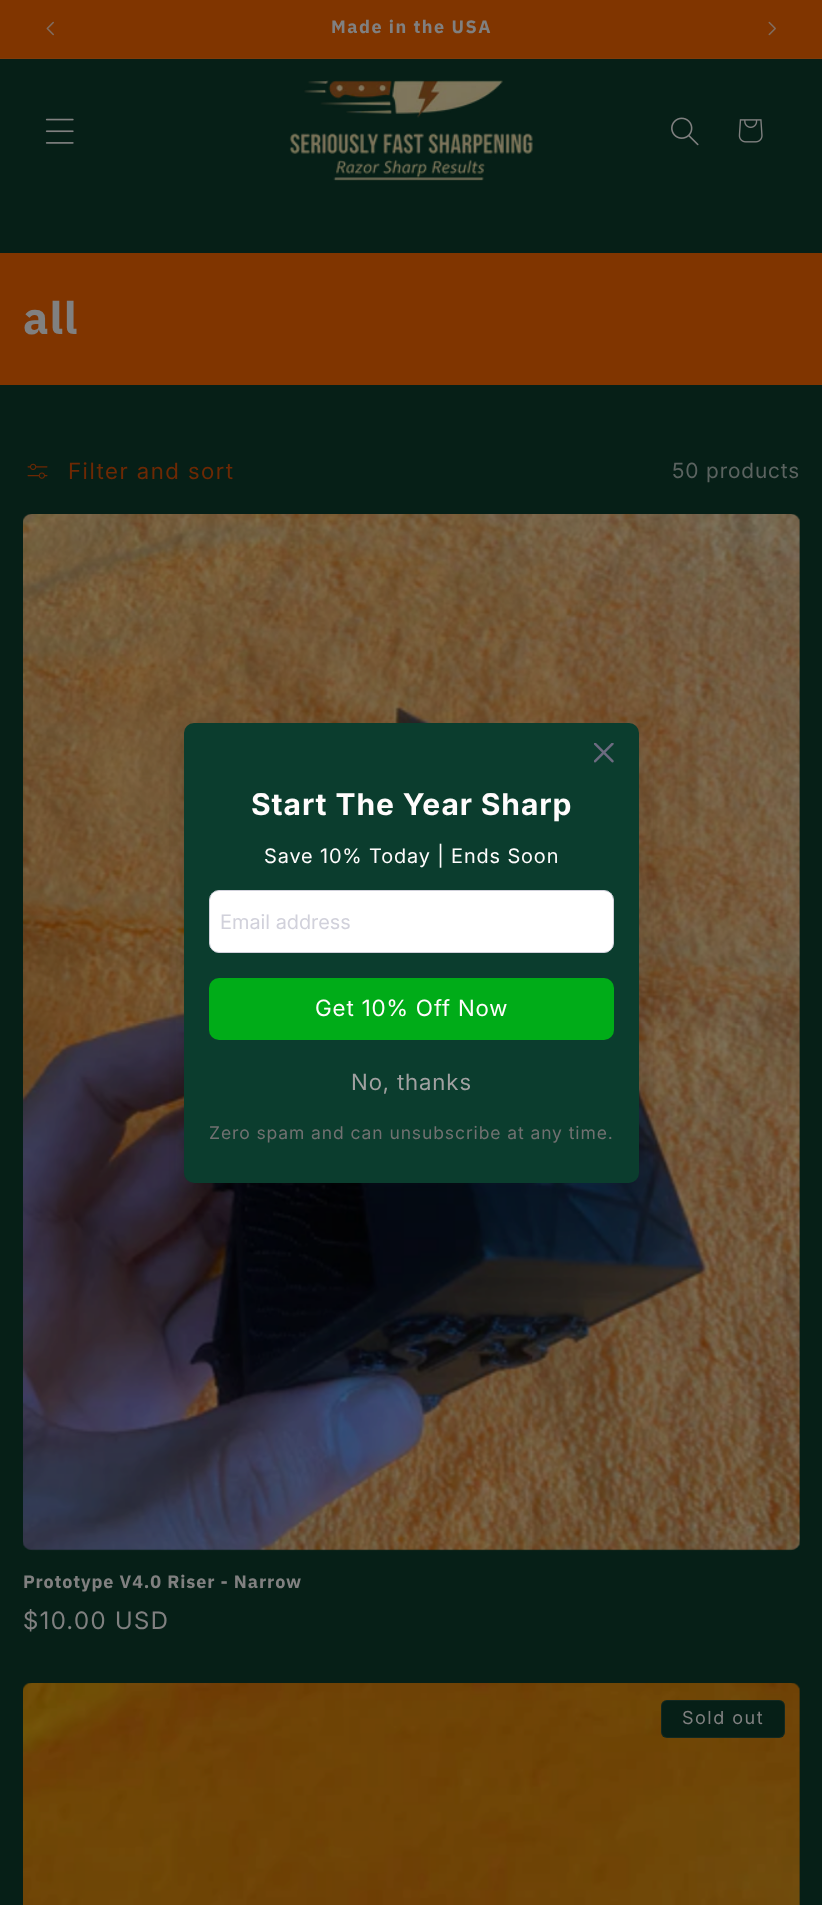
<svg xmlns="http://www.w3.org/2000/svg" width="822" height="1905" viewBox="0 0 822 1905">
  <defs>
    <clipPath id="clip1"><path d="M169 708h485v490H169z"/></clipPath>
  </defs>
  <rect width="100%" height="100%" fill="#061f17"/>
  <path d="M0 0h822v58H0z" fill="#803500"/>
  <path d="M0 58h822v1H0z" fill="#803b0a"/>
  <image x="46" y="21" width="8" height="15" href="img/1.png"/>
  <image x="768" y="21" width="8" height="15" href="img/2.png"/>
  <image x="45" y="118" width="29" height="26" href="img/3.png"/>
  <image x="289" y="80" width="244" height="101" href="img/4.png"/>
  <image x="671" y="117" width="28" height="29" href="img/5.png"/>
  <image x="738" y="119" width="25" height="24" href="img/6.png"/>
  <path d="M0 253h822v132H0z" fill="#803500"/>
  <image x="27" y="463" width="21" height="16" href="img/7.png"/>
  <image x="23" y="514" width="777" height="1037" href="img/8.png"/>
  <image x="23" y="1683" width="777" height="222" href="img/9.png"/>
  <rect x="661" y="1700" width="124" height="38" rx="6" fill="#061f17"/>
  <rect x="661.5" y="1700.5" width="123" height="37" rx="5.5" fill="none" stroke="#8080801a"/>
  <g clip-path="url(#clip1)">
    <rect x="184" y="733" width="455" height="460" rx="10" fill="#1211271a" filter="blur(12.5px)"/>
  </g>
  <rect x="184" y="723" width="455" height="460" rx="10" fill="#0b3d2e"/>
  <image x="594" y="743" width="20" height="20" href="img/10.png"/>
  <rect x="209.5" y="890.5" width="404" height="62" rx="9.5" fill="#fff" stroke="#d1d1db"/>
  <rect x="209" y="978" width="405" height="62" rx="10" fill="#00ac18"/>
  <text x="331" y="33" font-family="IBM Plex Sans" font-size="18" font-weight="bold" letter-spacing="1.5" fill="#808080">Made in the USA</text>
  <text x="23" y="334" font-family="IBM Plex Sans" font-size="45" font-weight="bold" letter-spacing="0.9" fill="#808080">all</text>
  <text x="68" y="479" font-family="Inter" font-size="22.5" letter-spacing="1.5" fill="#6d2904">Filter and sort</text>
  <text x="672" y="478" font-family="'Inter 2'" font-size="21" letter-spacing="0.9" fill="#5b6360">50 products</text>
  <text x="23" y="1588" font-family="IBM Plex Sans" font-size="18" font-weight="bold" letter-spacing="0.9" fill="#808080">Prototype V4.0 Riser - Narrow</text>
  <text x="23" y="1629" font-family="'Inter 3'" font-size="24" letter-spacing="1.5" fill="#808080">$10.00 USD</text>
  <text x="682" y="1724" font-family="'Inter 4'" font-size="18" letter-spacing="1.5" fill="#808080">Sold out</text>
  <text x="251" y="815" font-family="Inter" font-size="30" font-weight="bold" letter-spacing="0.9" fill="#fffcfc">Start The Year Sharp</text>
  <text x="264" y="863" font-family="'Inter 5'" font-size="20" letter-spacing="0.9" fill="#fffcfc">Save 10% Today | Ends Soon</text>
  <text x="220" y="929" font-family="'Inter 5'" font-size="20" fill="#d1d1db">Email address</text>
  <text x="315" y="1016" font-family="Inter" font-size="22.5" letter-spacing="0.9" fill="#fffcfc">Get 10% Off Now</text>
  <text x="351" y="1090" font-family="Inter" font-size="22.5" letter-spacing="0.9" fill="#a1a1a1">No, thanks</text>
  <text x="209" y="1139" font-family="'Inter 4'" font-size="17.5" letter-spacing="0.9" fill="#717171">Zero spam and can unsubscribe at any time.</text>
</svg>
